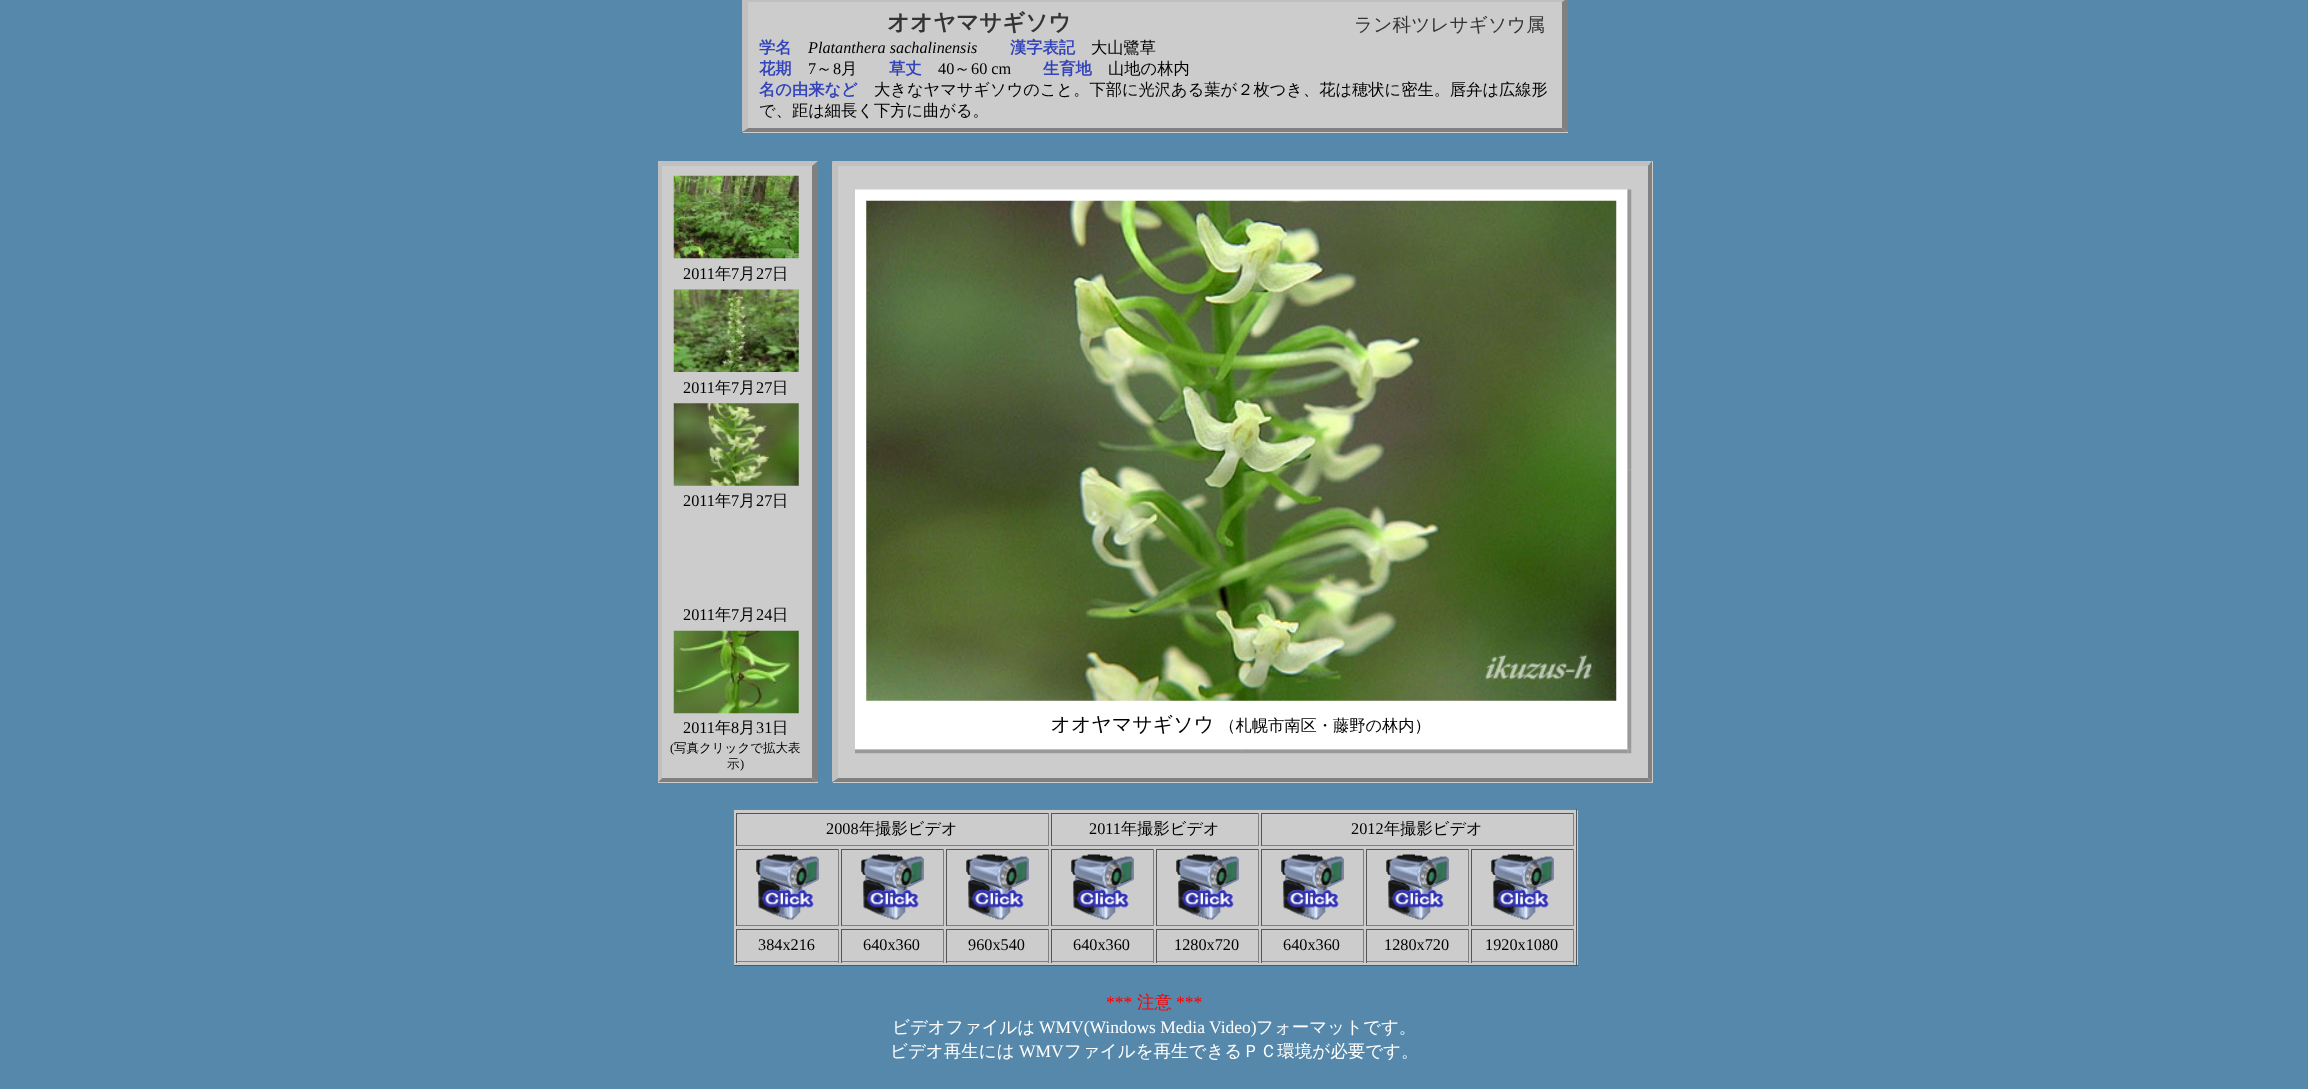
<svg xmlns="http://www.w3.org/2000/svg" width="2308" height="1089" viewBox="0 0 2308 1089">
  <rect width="100%" height="100%" fill="#58a"/>
  <path d="M743 0h825v133H743z" fill="#ccc"/>
  <path d="M742-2H1568L1562 2H748Z" fill="#c0c0c0"/>
  <path d="M1568-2V132L1562 128V2Z" fill="#808080"/>
  <path d="M1568 132H742L748 128H1562Z" fill="#808080"/>
  <path d="M742 132V-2L748 2V128Z" fill="#c0c0c0"/>
  <path d="M658 161h160v622H658z" fill="#ccc"/>
  <path d="M658 161H818L812 166H662Z" fill="#c0c0c0"/>
  <path d="M818 161V782L812 778V166Z" fill="#808080"/>
  <path d="M818 782H658L662 778H812Z" fill="#808080"/>
  <path d="M658 782V161L662 166V778Z" fill="#c0c0c0"/>
  <image x="673" y="175" width="126" height="84" href="img/1.png"/>
  <image x="673" y="289" width="126" height="83" href="img/2.png"/>
  <image x="673" y="403" width="126" height="83" href="img/3.png"/>
  <image x="673" y="630" width="126" height="84" href="img/4.png"/>
  <path d="M833 161h820v622H833z" fill="#ccc"/>
  <path d="M832 161H1652L1648 166H838Z" fill="#c0c0c0"/>
  <path d="M1652 161V782L1648 778V166Z" fill="#808080"/>
  <path d="M1652 782H832L838 778H1648Z" fill="#808080"/>
  <path d="M832 782V161L838 166V778Z" fill="#c0c0c0"/>
  <image x="855" y="189" width="777" height="565" href="img/5.png"/>
  <path d="M734 810h844v155H734z" fill="#ccc"/>
  <path d="M733 809h845v1H733z" fill="#808080"/>
  <path d="M1576 809h1v157H1576z" fill="#555"/>
  <path d="M733 965h845v1H733z" fill="#555"/>
  <path d="M733 809h1v157H733z" fill="#808080"/>
  <path d="M736 813h313v1H736z" fill="#555"/>
  <path d="M1048 813h1v33H1048z" fill="#808080"/>
  <path d="M736 845h313v1H736z" fill="#808080"/>
  <path d="M736 813h1v33H736z" fill="#555"/>
  <path d="M1051 813h208v1H1051z" fill="#555"/>
  <path d="M1258 813h1v33H1258z" fill="#808080"/>
  <path d="M1051 845h208v1H1051z" fill="#808080"/>
  <path d="M1051 813h1v33H1051z" fill="#555"/>
  <path d="M1261 813h313v1H1261z" fill="#555"/>
  <path d="M1573 813h1v33H1573z" fill="#808080"/>
  <path d="M1261 845h313v1H1261z" fill="#808080"/>
  <path d="M1261 813h1v33H1261z" fill="#555"/>
  <path d="M736 849h103v1H736z" fill="#555"/>
  <path d="M838 849h1v77H838z" fill="#808080"/>
  <path d="M736 925h103v1H736z" fill="#808080"/>
  <path d="M736 849h1v77H736z" fill="#555"/>
  <image x="756" y="854" width="63" height="66" href="img/6.png"/>
  <path d="M841 849h103v1H841z" fill="#555"/>
  <path d="M943 849h1v77H943z" fill="#808080"/>
  <path d="M841 925h103v1H841z" fill="#808080"/>
  <path d="M841 849h1v77H841z" fill="#555"/>
  <image x="861" y="854" width="63" height="66" href="img/7.png"/>
  <path d="M946 849h103v1H946z" fill="#555"/>
  <path d="M1048 849h1v77H1048z" fill="#808080"/>
  <path d="M946 925h103v1H946z" fill="#808080"/>
  <path d="M946 849h1v77H946z" fill="#555"/>
  <image x="966" y="854" width="63" height="66" href="img/6.png"/>
  <path d="M1051 849h103v1H1051z" fill="#555"/>
  <path d="M1153 849h1v77H1153z" fill="#808080"/>
  <path d="M1051 925h103v1H1051z" fill="#808080"/>
  <path d="M1051 849h1v77H1051z" fill="#555"/>
  <image x="1071" y="854" width="63" height="66" href="img/6.png"/>
  <path d="M1156 849h103v1H1156z" fill="#555"/>
  <path d="M1258 849h1v77H1258z" fill="#808080"/>
  <path d="M1156 925h103v1H1156z" fill="#808080"/>
  <path d="M1156 849h1v77H1156z" fill="#555"/>
  <image x="1176" y="854" width="63" height="66" href="img/6.png"/>
  <path d="M1261 849h103v1H1261z" fill="#555"/>
  <path d="M1363 849h1v77H1363z" fill="#808080"/>
  <path d="M1261 925h103v1H1261z" fill="#808080"/>
  <path d="M1261 849h1v77H1261z" fill="#555"/>
  <image x="1281" y="854" width="63" height="66" href="img/7.png"/>
  <path d="M1366 849h103v1H1366z" fill="#555"/>
  <path d="M1468 849h1v77H1468z" fill="#808080"/>
  <path d="M1366 925h103v1H1366z" fill="#808080"/>
  <path d="M1366 849h1v77H1366z" fill="#555"/>
  <image x="1386" y="854" width="63" height="66" href="img/6.png"/>
  <path d="M1471 849h103v1H1471z" fill="#555"/>
  <path d="M1573 849h1v77H1573z" fill="#808080"/>
  <path d="M1471 925h103v1H1471z" fill="#808080"/>
  <path d="M1471 849h1v77H1471z" fill="#555"/>
  <image x="1491" y="854" width="63" height="66" href="img/6.png"/>
  <path d="M736 929h103v1H736z" fill="#555"/>
  <path d="M838 929h1v34H838z" fill="#808080"/>
  <path d="M736 961h103v1H736z" fill="#808080"/>
  <path d="M736 929h1v34H736z" fill="#555"/>
  <path d="M841 929h103v1H841z" fill="#555"/>
  <path d="M943 929h1v34H943z" fill="#808080"/>
  <path d="M841 961h103v1H841z" fill="#808080"/>
  <path d="M841 929h1v34H841z" fill="#555"/>
  <path d="M946 929h103v1H946z" fill="#555"/>
  <path d="M1048 929h1v34H1048z" fill="#808080"/>
  <path d="M946 961h103v1H946z" fill="#808080"/>
  <path d="M946 929h1v34H946z" fill="#555"/>
  <path d="M1051 929h103v1H1051z" fill="#555"/>
  <path d="M1153 929h1v34H1153z" fill="#808080"/>
  <path d="M1051 961h103v1H1051z" fill="#808080"/>
  <path d="M1051 929h1v34H1051z" fill="#555"/>
  <path d="M1156 929h103v1H1156z" fill="#555"/>
  <path d="M1258 929h1v34H1258z" fill="#808080"/>
  <path d="M1156 961h103v1H1156z" fill="#808080"/>
  <path d="M1156 929h1v34H1156z" fill="#555"/>
  <path d="M1261 929h103v1H1261z" fill="#555"/>
  <path d="M1363 929h1v34H1363z" fill="#808080"/>
  <path d="M1261 961h103v1H1261z" fill="#808080"/>
  <path d="M1261 929h1v34H1261z" fill="#555"/>
  <path d="M1366 929h103v1H1366z" fill="#555"/>
  <path d="M1468 929h1v34H1468z" fill="#808080"/>
  <path d="M1366 961h103v1H1366z" fill="#808080"/>
  <path d="M1366 929h1v34H1366z" fill="#555"/>
  <path d="M1471 929h103v1H1471z" fill="#555"/>
  <path d="M1573 929h1v34H1573z" fill="#808080"/>
  <path d="M1471 961h103v1H1471z" fill="#808080"/>
  <path d="M1471 929h1v34H1471z" fill="#555"/>
  <text x="887" y="30" font-family="WenQuanYi Zen Hei" font-size="22.5" font-weight="bold" fill="#333">オオヤマサギソウ</text>
  <text x="1354" y="31" font-family="WenQuanYi Zen Hei" font-size="18.75" font-weight="500" fill="#333">ラン科ツレサギソウ属</text>
  <text x="759" y="53" font-family="WenQuanYi Zen Hei" font-size="16.25" font-weight="bold" fill="#34b">学名</text>
  <text x="808" y="53" font-family="Liberation Serif" font-size="16.25" font-style="italic" fill="#000">Platanthera sachalinensis</text>
  <text x="1010" y="53" font-family="WenQuanYi Zen Hei" font-size="16.25" font-weight="bold" fill="#34b">漢字表記</text>
  <text x="1091" y="53" font-family="WenQuanYi Zen Hei" font-size="16.25" font-weight="500" fill="#000">大山鷺草</text>
  <text x="759" y="74" font-family="WenQuanYi Zen Hei" font-size="16.25" font-weight="bold" fill="#34b">花期</text>
  <text x="808" y="74" font-family="Liberation Serif" font-size="16.25" fill="#000">7</text>
  <text x="816" y="74" font-family="WenQuanYi Zen Hei" font-size="16.25" font-weight="500" fill="#000">～</text>
  <text x="833" y="74" font-family="Liberation Serif" font-size="16.25" fill="#000">8</text>
  <text x="841" y="74" font-family="WenQuanYi Zen Hei" font-size="16.25" font-weight="500" fill="#000">月</text>
  <text x="889" y="74" font-family="WenQuanYi Zen Hei" font-size="16.25" font-weight="bold" fill="#34b">草丈</text>
  <text x="938" y="74" font-family="Liberation Serif" font-size="16.25" fill="#000">40</text>
  <text x="954" y="74" font-family="WenQuanYi Zen Hei" font-size="16.25" font-weight="500" fill="#000">～</text>
  <text x="971" y="74" font-family="Liberation Serif" font-size="16.25" fill="#000">60 cm</text>
  <text x="1043" y="74" font-family="WenQuanYi Zen Hei" font-size="16.25" font-weight="bold" fill="#34b">生育地</text>
  <text x="1108" y="74" font-family="WenQuanYi Zen Hei" font-size="16.25" font-weight="500" fill="#000">山地の林内</text>
  <text x="759" y="95" font-family="WenQuanYi Zen Hei" font-size="16.25" font-weight="bold" fill="#34b">名の由来など</text>
  <g font-family="WenQuanYi Zen Hei" font-size="16.25" font-weight="500" fill="#000">
    <text x="874" y="95">大きなヤマサギソウのこと。下部に光沢ある葉が２枚つき、花は穂状に密生。唇弁は広線形</text>
    <text x="759" y="116">で、距は細長く下方に曲がる。</text>
  </g>
  <text x="683" y="279" font-family="Liberation Serif" font-size="16.25" fill="#000">2011</text>
  <text x="715" y="279" font-family="WenQuanYi Zen Hei" font-size="16.25" font-weight="500" fill="#000">年</text>
  <text x="731" y="279" font-family="Liberation Serif" font-size="16.25" fill="#000">7</text>
  <text x="739" y="279" font-family="WenQuanYi Zen Hei" font-size="16.25" font-weight="500" fill="#000">月</text>
  <text x="756" y="279" font-family="Liberation Serif" font-size="16.25" fill="#000">27</text>
  <text x="772" y="279" font-family="WenQuanYi Zen Hei" font-size="16.25" font-weight="500" fill="#000">日</text>
  <text x="683" y="393" font-family="Liberation Serif" font-size="16.25" fill="#000">2011</text>
  <text x="715" y="393" font-family="WenQuanYi Zen Hei" font-size="16.25" font-weight="500" fill="#000">年</text>
  <text x="731" y="393" font-family="Liberation Serif" font-size="16.25" fill="#000">7</text>
  <text x="739" y="393" font-family="WenQuanYi Zen Hei" font-size="16.25" font-weight="500" fill="#000">月</text>
  <text x="756" y="393" font-family="Liberation Serif" font-size="16.25" fill="#000">27</text>
  <text x="772" y="393" font-family="WenQuanYi Zen Hei" font-size="16.25" font-weight="500" fill="#000">日</text>
  <text x="683" y="506" font-family="Liberation Serif" font-size="16.25" fill="#000">2011</text>
  <text x="715" y="506" font-family="WenQuanYi Zen Hei" font-size="16.25" font-weight="500" fill="#000">年</text>
  <text x="731" y="506" font-family="Liberation Serif" font-size="16.25" fill="#000">7</text>
  <text x="739" y="506" font-family="WenQuanYi Zen Hei" font-size="16.25" font-weight="500" fill="#000">月</text>
  <text x="756" y="506" font-family="Liberation Serif" font-size="16.25" fill="#000">27</text>
  <text x="772" y="506" font-family="WenQuanYi Zen Hei" font-size="16.25" font-weight="500" fill="#000">日</text>
  <text x="683" y="620" font-family="Liberation Serif" font-size="16.25" fill="#000">2011</text>
  <text x="715" y="620" font-family="WenQuanYi Zen Hei" font-size="16.25" font-weight="500" fill="#000">年</text>
  <text x="731" y="620" font-family="Liberation Serif" font-size="16.25" fill="#000">7</text>
  <text x="739" y="620" font-family="WenQuanYi Zen Hei" font-size="16.25" font-weight="500" fill="#000">月</text>
  <text x="756" y="620" font-family="Liberation Serif" font-size="16.25" fill="#000">24</text>
  <text x="772" y="620" font-family="WenQuanYi Zen Hei" font-size="16.25" font-weight="500" fill="#000">日</text>
  <text x="683" y="733" font-family="Liberation Serif" font-size="16.25" fill="#000">2011</text>
  <text x="715" y="733" font-family="WenQuanYi Zen Hei" font-size="16.25" font-weight="500" fill="#000">年</text>
  <text x="731" y="733" font-family="Liberation Serif" font-size="16.25" fill="#000">8</text>
  <text x="739" y="733" font-family="WenQuanYi Zen Hei" font-size="16.25" font-weight="500" fill="#000">月</text>
  <text x="756" y="733" font-family="Liberation Serif" font-size="16.25" fill="#000">31</text>
  <text x="772" y="733" font-family="WenQuanYi Zen Hei" font-size="16.25" font-weight="500" fill="#000">日</text>
  <text x="670" y="752" font-family="Liberation Serif" font-size="12.5" fill="#000">(</text>
  <g font-family="WenQuanYi Zen Hei" font-size="12.5" font-weight="500" fill="#000">
    <text x="674" y="752">写真クリックで拡大表</text>
    <text x="727" y="768">示</text>
  </g>
  <text x="740" y="768" font-family="Liberation Serif" font-size="12.5" fill="#000">)</text>
  <text x="826" y="834" font-family="Liberation Serif" font-size="16.25" fill="#000">2008</text>
  <text x="859" y="834" font-family="WenQuanYi Zen Hei" font-size="16.25" font-weight="500" fill="#000">年撮影ビデオ</text>
  <text x="1089" y="834" font-family="Liberation Serif" font-size="16.25" fill="#000">2011</text>
  <text x="1121" y="834" font-family="WenQuanYi Zen Hei" font-size="16.25" font-weight="500" fill="#000">年撮影ビデオ</text>
  <text x="1351" y="834" font-family="Liberation Serif" font-size="16.25" fill="#000">2012</text>
  <text x="1384" y="834" font-family="WenQuanYi Zen Hei" font-size="16.25" font-weight="500" fill="#000">年撮影ビデオ</text>
  <g font-family="Liberation Serif" font-size="16.25" fill="#000">
    <text x="758" y="950">384x216</text>
    <text x="863" y="950">640x360</text>
    <text x="968" y="950">960x540</text>
    <text x="1073" y="950">640x360</text>
    <text x="1174" y="950">1280x720</text>
    <text x="1283" y="950">640x360</text>
    <text x="1384" y="950">1280x720</text>
    <text x="1485" y="950">1920x1080</text>
  </g>
  <text x="1106" y="1008" font-family="Liberation Serif" font-size="17.5" fill="#f00">***</text>
  <text x="1137" y="1008" font-family="WenQuanYi Zen Hei" font-size="17.5" font-weight="500" fill="#f00">注意</text>
  <text x="1176" y="1008" font-family="Liberation Serif" font-size="17.5" fill="#f00">***</text>
  <text x="892" y="1033" font-family="WenQuanYi Zen Hei" font-size="17.5" font-weight="500" fill="#fff">ビデオファイルは</text>
  <text x="1039" y="1033" font-family="Liberation Serif" font-size="17.5" fill="#fff">WMV(Windows Media Video)</text>
  <g font-family="WenQuanYi Zen Hei" font-size="17.5" font-weight="500" fill="#fff">
    <text x="1256" y="1033">フォーマットです。</text>
    <text x="890" y="1057">ビデオ再生には</text>
  </g>
  <text x="1019" y="1057" font-family="Liberation Serif" font-size="17.5" fill="#fff">WMV</text>
  <text x="1064" y="1057" font-family="WenQuanYi Zen Hei" font-size="17.5" font-weight="500" fill="#fff">ファイルを再生できるＰＣ環境が必要です。</text>
</svg>
